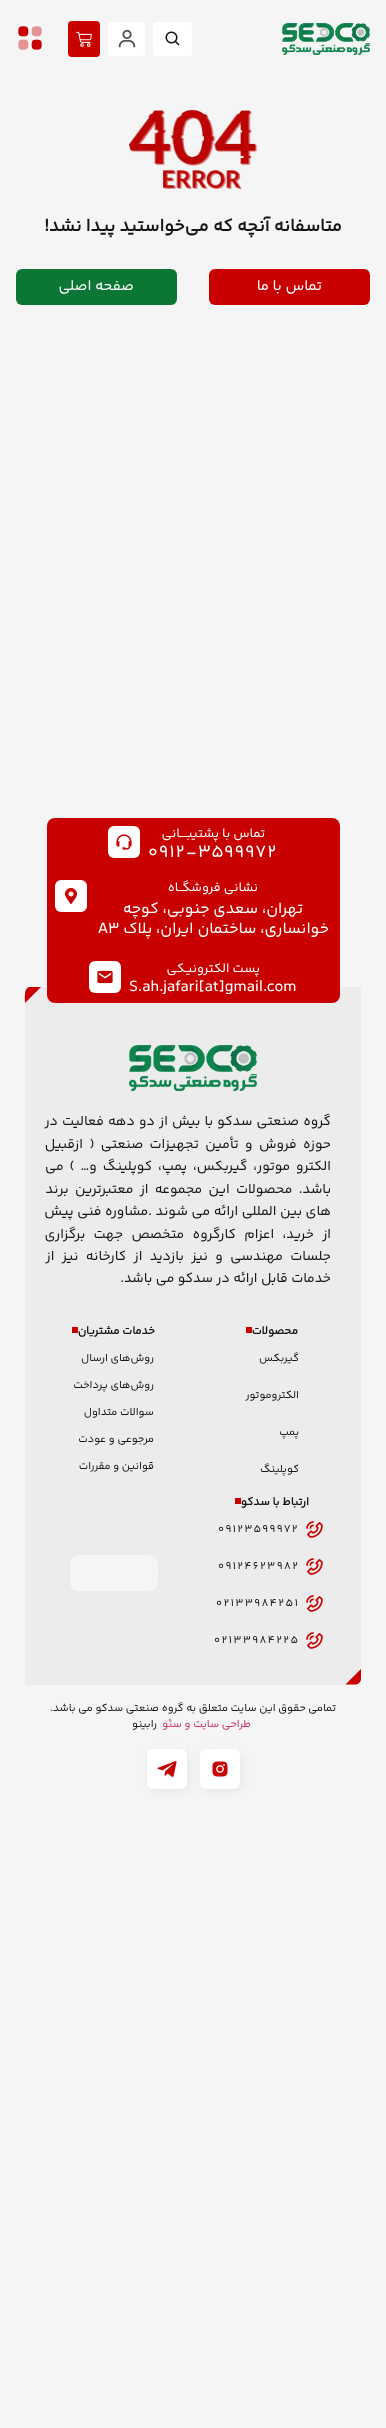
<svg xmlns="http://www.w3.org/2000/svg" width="386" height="2428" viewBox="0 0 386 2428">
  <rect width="100%" height="100%" fill="#f5f5f5"/>
  <image x="282" y="23" width="88" height="32" href="img/1.png"/>
  <rect x="153" y="22" width="39" height="34" rx="4" fill="#fff"/>
  <image x="165" y="31" width="15" height="15" href="img/2.png"/>
  <rect x="108" y="22" width="37" height="34" rx="4" fill="#fff"/>
  <image x="118" y="29" width="18" height="19" href="img/3.png"/>
  <rect x="68" y="21" width="32" height="36" rx="4" fill="#c80100"/>
  <image x="76" y="31" width="16" height="16" href="img/4.png"/>
  <image x="18" y="26" width="24" height="24" href="img/5.png"/>
  <image x="129" y="110" width="128" height="79" href="img/6.png"/>
  <rect x="209" y="269" width="161" height="36" rx="6" fill="#c80100"/>
  <rect x="16" y="269" width="161" height="36" rx="6" fill="#0c7735"/>
  <path d="M25 987h336v698H25z" fill="#ececec"/>
  <rect x="47" y="818" width="293" height="185" rx="8" fill="#c80100"/>
  <rect x="108" y="826" width="32" height="32" rx="6" fill="#fff"/>
  <image x="116" y="834" width="16" height="16" href="img/7.png"/>
  <rect x="55" y="880" width="32" height="32" rx="6" fill="#fff"/>
  <image x="65" y="888" width="12" height="16" href="img/8.png"/>
  <rect x="89" y="961" width="32" height="32" rx="6" fill="#fff"/>
  <image x="97" y="970" width="16" height="14" href="img/9.png"/>
  <path d="M41 987H29.5C23.5 988 25 999 25 1003Z" fill="#c80100"/>
  <image x="129" y="1045" width="128" height="46" href="img/10.png"/>
  <path d="M246 1327h6v6H246z" fill="#c80100"/>
  <path d="M72 1327h6v6H72z" fill="#c80100"/>
  <path d="M235 1498h6v6H235z" fill="#c80100"/>
  <image x="306" y="1521" width="17" height="17" href="img/11.png"/>
  <image x="306" y="1558" width="17" height="17" href="img/11.png"/>
  <image x="306" y="1595" width="17" height="17" href="img/11.png"/>
  <image x="306" y="1632" width="17" height="17" href="img/11.png"/>
  <rect x="70" y="1555" width="88" height="36" rx="8" fill="#f5f5f5"/>
  <path d="M361 1669L345.5 1684.5H355C358.5 1684.5 361 1682 361 1678.5Z" fill="#c80100"/>
  <rect x="202" y="1751" width="40" height="40" rx="6" fill="#0000000f" filter="blur(5px)"/>
  <rect x="200" y="1749" width="40" height="40" rx="6" fill="#fff"/>
  <image x="212" y="1761" width="16" height="16" href="img/12.png"/>
  <rect x="149" y="1751" width="40" height="40" rx="6" fill="#0000000f" filter="blur(5px)"/>
  <rect x="147" y="1749" width="40" height="40" rx="6" fill="#fff"/>
  <image x="157" y="1761" width="20" height="16" href="img/13.png"/>
  <text x="342" y="231" font-family="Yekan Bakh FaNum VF" font-size="18" font-weight="bold" direction="rtl" fill="#141414">متاسفانه آنچه که می‌خواستید پیدا نشد!</text>
  <g font-family="Yekan Bakh FaNum VF" font-size="15" direction="rtl" fill="#fff">
    <text x="322" y="290">تماس با ما</text>
    <text x="134" y="290">صفحه اصلی</text>
  </g>
  <text x="265" y="837" font-family="Yekan Bakh FaNum VF" font-size="13" direction="rtl" fill="#fff">تماس با پشتیبــــانی</text>
  <text x="148" y="857" font-family="Yekan Bakh FaNum VF" font-size="18" letter-spacing="1.25" fill="#fff">0912-3599972</text>
  <text x="258" y="891" font-family="Yekan Bakh FaNum VF" font-size="13" direction="rtl" fill="#fff">نشانی فروشگــاه</text>
  <g font-family="Yekan Bakh FaNum VF" font-size="16" direction="rtl" fill="#fff">
    <text x="303" y="913">تهران، سعدی جنوبی، کوچه</text>
    <text x="329" y="933">خوانساری، ساختمان ایران، پلاک</text>
  </g>
  <text x="98" y="933" font-family="Yekan Bakh FaNum VF" font-size="16" fill="#fff">A3</text>
  <text x="260" y="972" font-family="Yekan Bakh FaNum VF" font-size="13" direction="rtl" fill="#fff">پست الکترونیـکی</text>
  <text x="129" y="991" font-family="Yekan Bakh FaNum VF" font-size="16" fill="#fff">S.ah.jafari[at]gmail.com</text>
  <g font-family="Yekan Bakh FaNum VF" font-size="14" direction="rtl" fill="#141414">
    <text x="331" y="1125" word-spacing="0.75">گروه صنعتی سدکو با بیش از دو دهه فعالیت در</text>
    <text x="331" y="1148" word-spacing="3">حوزه فروش و تأمین تجهیزات صنعتی ( ازقبیل</text>
    <text x="331" y="1170" word-spacing="2.5">الکترو موتور، گیربکس، پمپ، کوپلینگ و… ) می</text>
    <text x="331" y="1193" word-spacing="3">باشد. محصولات این مجموعه از معتبرترین برند</text>
    <text x="331" y="1215" word-spacing="0.25">های بین المللی ارائه می شوند .مشاوره فنی پیش</text>
    <text x="331" y="1238" word-spacing="5">از خرید، اعزام كارگروه متخصص جهت برگزاری</text>
    <text x="331" y="1260" word-spacing="4">جلسات مهندسی و نيز بازديد از كارخانه نیز از</text>
    <text x="331" y="1282">خدمات قابل ارائه در سدکو می باشد.</text>
  </g>
  <text x="298" y="1334" font-family="Yekan Bakh FaNum VF" font-size="11.5" font-weight="bold" direction="rtl" fill="#141414">محصولات</text>
  <g font-family="Yekan Bakh FaNum VF" font-size="11" direction="rtl" fill="#141414">
    <text x="299" y="1361">گیربکس</text>
    <text x="299" y="1398">الکتروموتور</text>
    <text x="299" y="1435">پمپ</text>
    <text x="299" y="1472">کوپلینگ</text>
  </g>
  <text x="155" y="1334" font-family="Yekan Bakh FaNum VF" font-size="11.5" font-weight="bold" direction="rtl" fill="#141414">خدمات مشتریان</text>
  <g font-family="Yekan Bakh FaNum VF" font-size="11" direction="rtl" fill="#141414">
    <text x="154" y="1361">روش‌های ارسال</text>
    <text x="154" y="1388">روش‌های پرداخت</text>
    <text x="154" y="1415">سوالات متداول</text>
    <text x="154" y="1442">مرجوعی و عودت</text>
    <text x="154" y="1469">قوانین و مقررات</text>
  </g>
  <text x="309" y="1505" font-family="Yekan Bakh FaNum VF" font-size="11.5" font-weight="bold" direction="rtl" fill="#141414">ارتباط با سدکو</text>
  <g font-family="Yekan Bakh FaNum VF" font-size="11" letter-spacing="1.6" fill="#141414">
    <text x="218" y="1532">09123599972</text>
    <text x="218" y="1569">09124623982</text>
    <text x="216" y="1606">02133984251</text>
    <text x="214" y="1643">02133984225</text>
  </g>
  <text x="336" y="1711" font-family="Yekan Bakh FaNum VF" font-size="11" direction="rtl" fill="#141414">تمامی حقوق این سایت متعلق به گروه صنعتی سدکو می باشد.</text>
  <text x="251" y="1727" font-family="Yekan Bakh FaNum VF" font-size="11" direction="rtl" fill="#c36">طراحی سایت و سئو</text>
  <text x="157" y="1727" font-family="Yekan Bakh FaNum VF" font-size="11" direction="rtl" fill="#141414">رابینو</text>
</svg>
